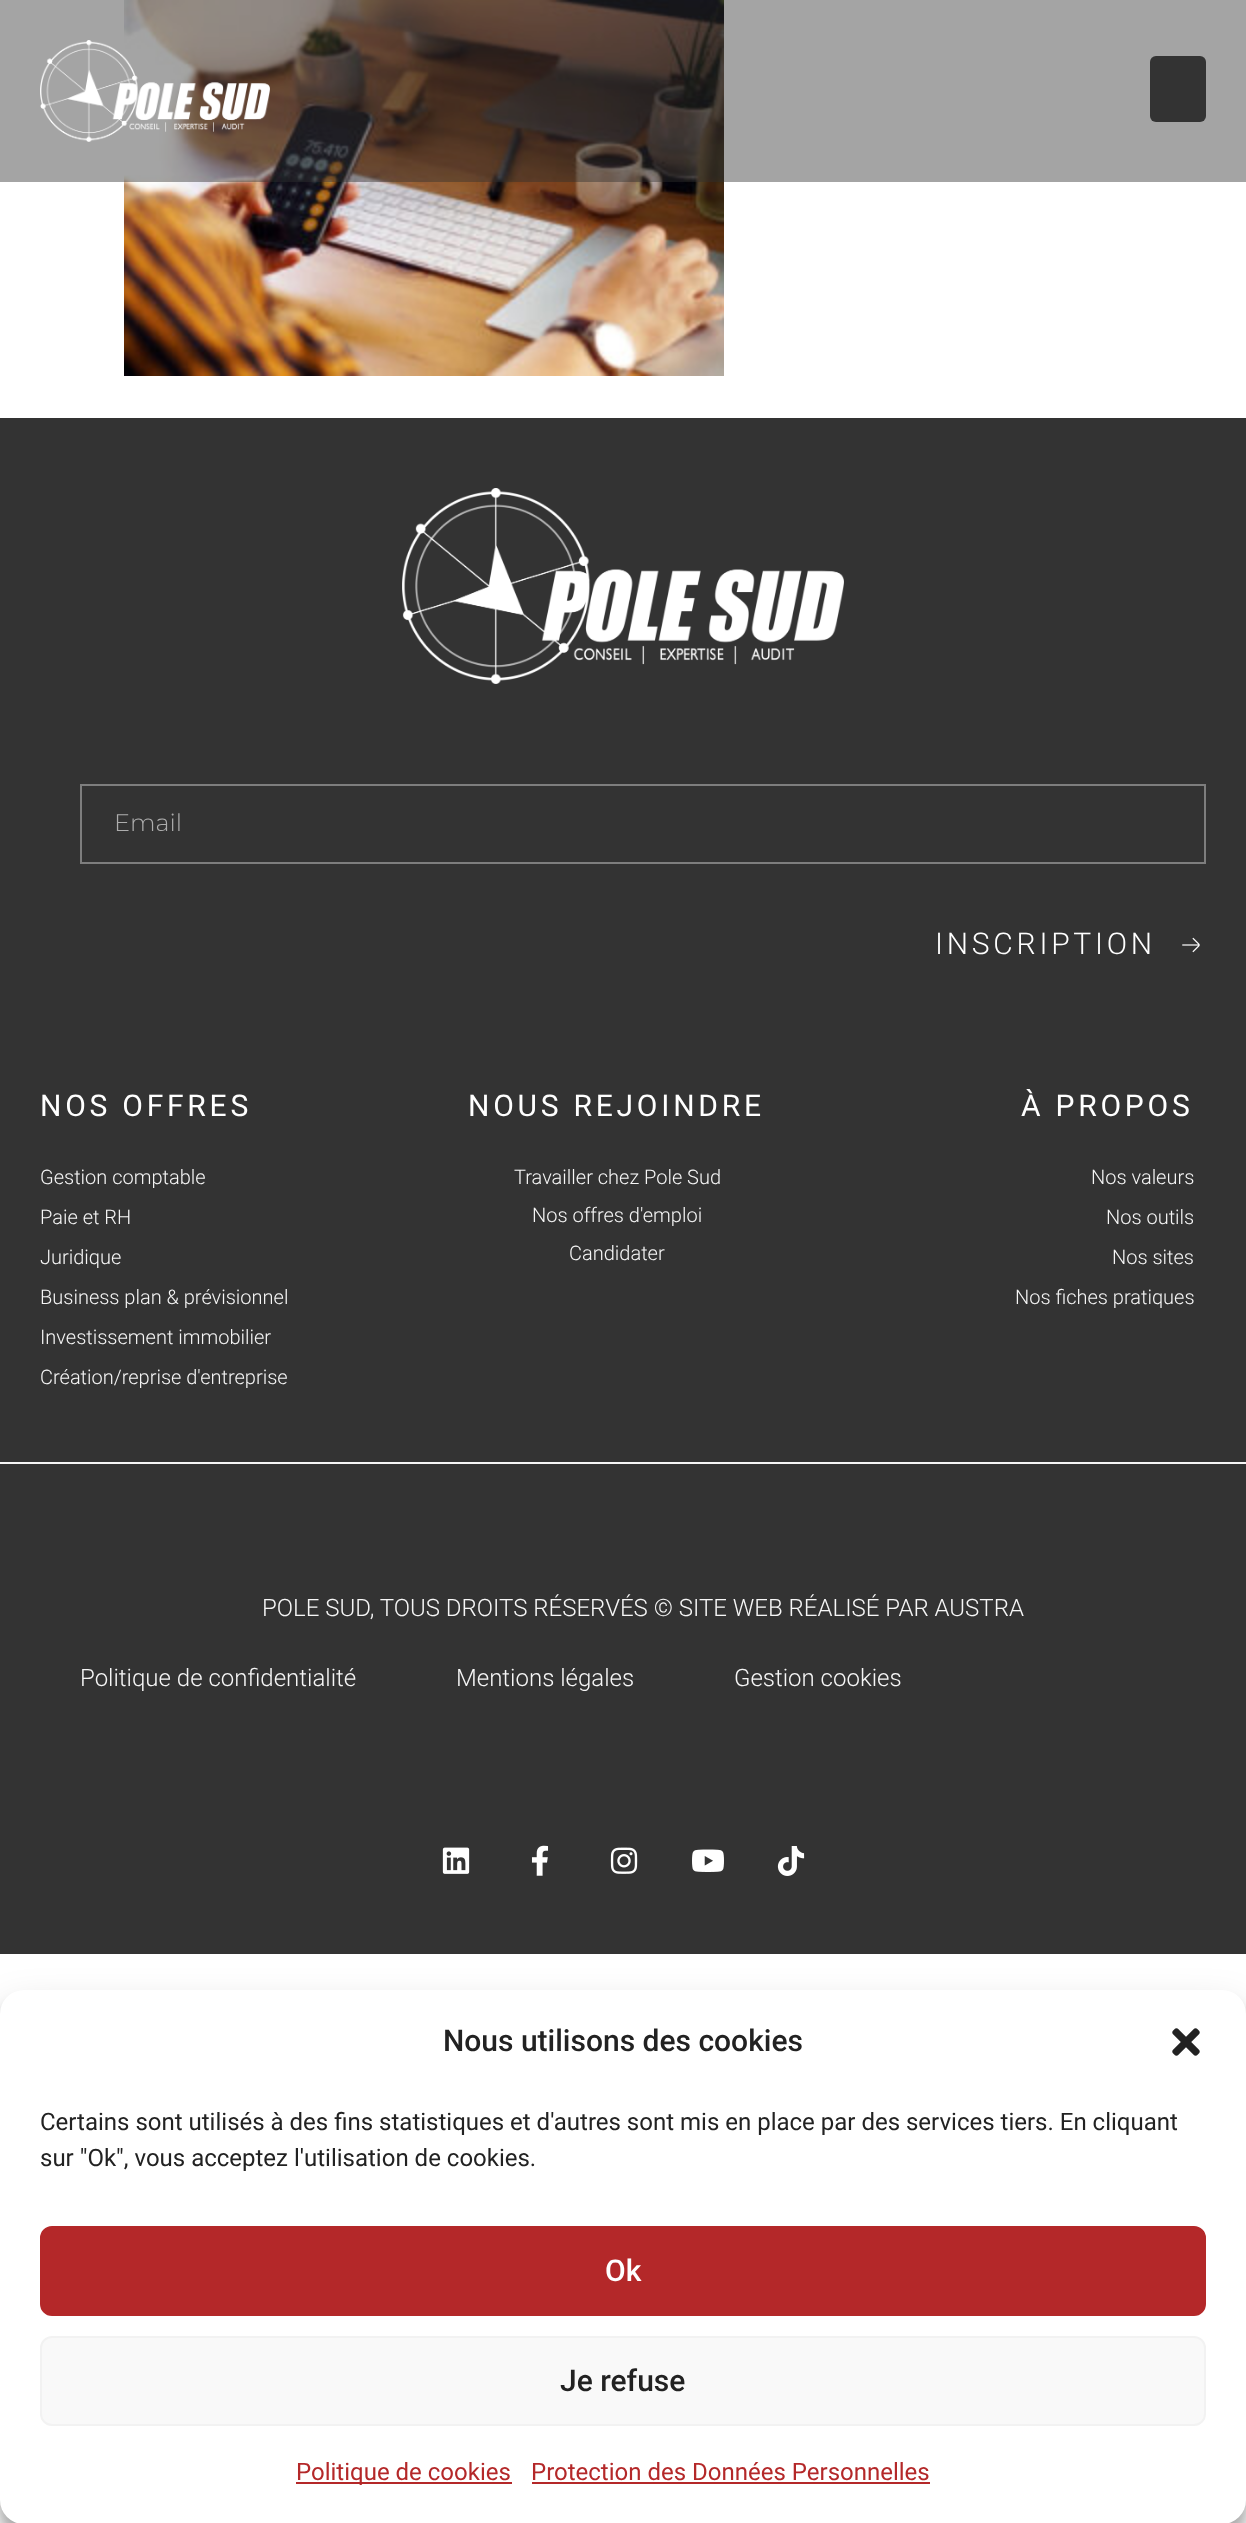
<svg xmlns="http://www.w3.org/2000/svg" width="1246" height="2523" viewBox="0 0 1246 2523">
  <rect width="100%" height="100%" fill="#fff"/>
  <image x="124" y="0" width="600" height="376" href="img/2.png"/>
  <path d="M0 0h1246v182H0z" fill="#2f2f2f70"/>
  <image x="40" y="40" width="230" height="102" href="img/1.png"/>
  <rect x="1150" y="56" width="56" height="66" rx="6" fill="#333"/>
  <path d="M0 418h1246v1044H0z" fill="#333"/>
  <image x="402" y="488" width="442" height="196" href="img/3.png"/>
  <path d="M81 785h1124v78H81z" fill="none" stroke="#7e7e7e" stroke-width="2"/>
  <image x="1182" y="937" width="18" height="16" href="img/4.png"/>
  <path d="M0 1464h1246v490H0z" fill="#333"/>
  <path d="M0 1462h1246v2H0z" fill="#f6f6f6"/>
  <image x="442" y="1847" width="28" height="27" href="img/5.png"/>
  <image x="531" y="1845" width="18" height="31" href="img/6.png"/>
  <image x="610" y="1847" width="28" height="27" href="img/7.png"/>
  <image x="692" y="1849" width="32" height="23" href="img/8.png"/>
  <image x="777" y="1846" width="28" height="30" href="img/9.png"/>
  <rect y="2002" width="1246" height="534" rx="24" fill="#0000003b" filter="blur(6px)"/>
  <rect y="2010" width="1246" height="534" rx="24" fill="#00000030" filter="blur(20px)"/>
  <rect y="1990" width="1246" height="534" rx="24" fill="#fff"/>
  <image x="1172" y="2028" width="28" height="28" href="img/10.png"/>
  <rect x="41" y="2227" width="1164" height="88" rx="11" fill="#b42829" stroke="#b42829" stroke-width="2"/>
  <rect x="41" y="2337" width="1164" height="88" rx="11" fill="#f9f9f9" stroke="#f2f2f2" stroke-width="2"/>
  <path d="M296 2482h216v2H296z" fill="#b42829"/>
  <path d="M532 2482h398v2H532z" fill="#b42829"/>
  <text x="114" y="831" font-family="Montserrat" font-size="24" font-weight="300" fill="#adadad">Email</text>
  <text x="935" y="954" font-family="Roboto" font-size="30" font-weight="300" letter-spacing="3.75" fill="#fff">INSCRIPTION</text>
  <text x="40" y="1116" font-family="Roboto" font-size="30" letter-spacing="3.75" fill="#fff">NOS OFFRES</text>
  <g font-family="Roboto" font-size="20" font-weight="300" fill="#f6f6f6">
    <text x="40" y="1184">Gestion comptable</text>
    <text x="40" y="1224">Paie et RH</text>
    <text x="40" y="1264">Juridique</text>
    <text x="40" y="1304">Business plan &amp; prévisionnel</text>
    <text x="40" y="1344">Investissement immobilier</text>
    <text x="40" y="1384">Création/reprise d'entreprise</text>
  </g>
  <text x="468" y="1116" font-family="Roboto" font-size="30" letter-spacing="3.75" fill="#fff">NOUS REJOINDRE</text>
  <g font-family="Roboto" font-size="20" font-weight="300" fill="#f6f6f6">
    <text x="514" y="1184">Travailler chez Pole Sud</text>
    <text x="532" y="1222">Nos offres d'emploi</text>
    <text x="569" y="1260">Candidater</text>
  </g>
  <text x="1021" y="1116" font-family="Roboto" font-size="30" letter-spacing="3.75" fill="#fff">À PROPOS</text>
  <g font-family="Roboto" font-size="20" font-weight="300" fill="#f6f6f6">
    <text x="1091" y="1184">Nos valeurs</text>
    <text x="1106" y="1224">Nos outils</text>
    <text x="1112" y="1264">Nos sites</text>
    <text x="1015" y="1304">Nos fiches pratiques</text>
  </g>
  <g font-family="Roboto" font-size="24" font-weight="300" fill="#f6f6f6">
    <text x="262" y="1616">POLE SUD, TOUS DROITS RÉSERVÉS © SITE WEB RÉALISÉ PAR AUSTRA</text>
    <text x="80" y="1686">Politique de confidentialité</text>
    <text x="456" y="1686">Mentions légales</text>
    <text x="734" y="1686">Gestion cookies</text>
  </g>
  <text x="443" y="2051" font-family="Roboto" font-size="30" font-weight="500" fill="#222">Nous utilisons des cookies</text>
  <g font-family="Roboto" font-size="24" fill="#222">
    <text x="40" y="2130">Certains sont utilisés à des fins statistiques et d'autres sont mis en place par des services tiers. En cliquant</text>
    <text x="40" y="2166">sur "Ok", vous acceptez l'utilisation de cookies.</text>
  </g>
  <text x="605" y="2281" font-family="Roboto" font-size="30" font-weight="500" fill="#fff">Ok</text>
  <text x="560" y="2391" font-family="Roboto" font-size="30" font-weight="500" fill="#222">Je refuse</text>
  <g font-family="Roboto" font-size="24" fill="#b42829">
    <text x="296" y="2480">Politique de cookies</text>
    <text x="531" y="2480">Protection des Données Personnelles</text>
  </g>
</svg>
